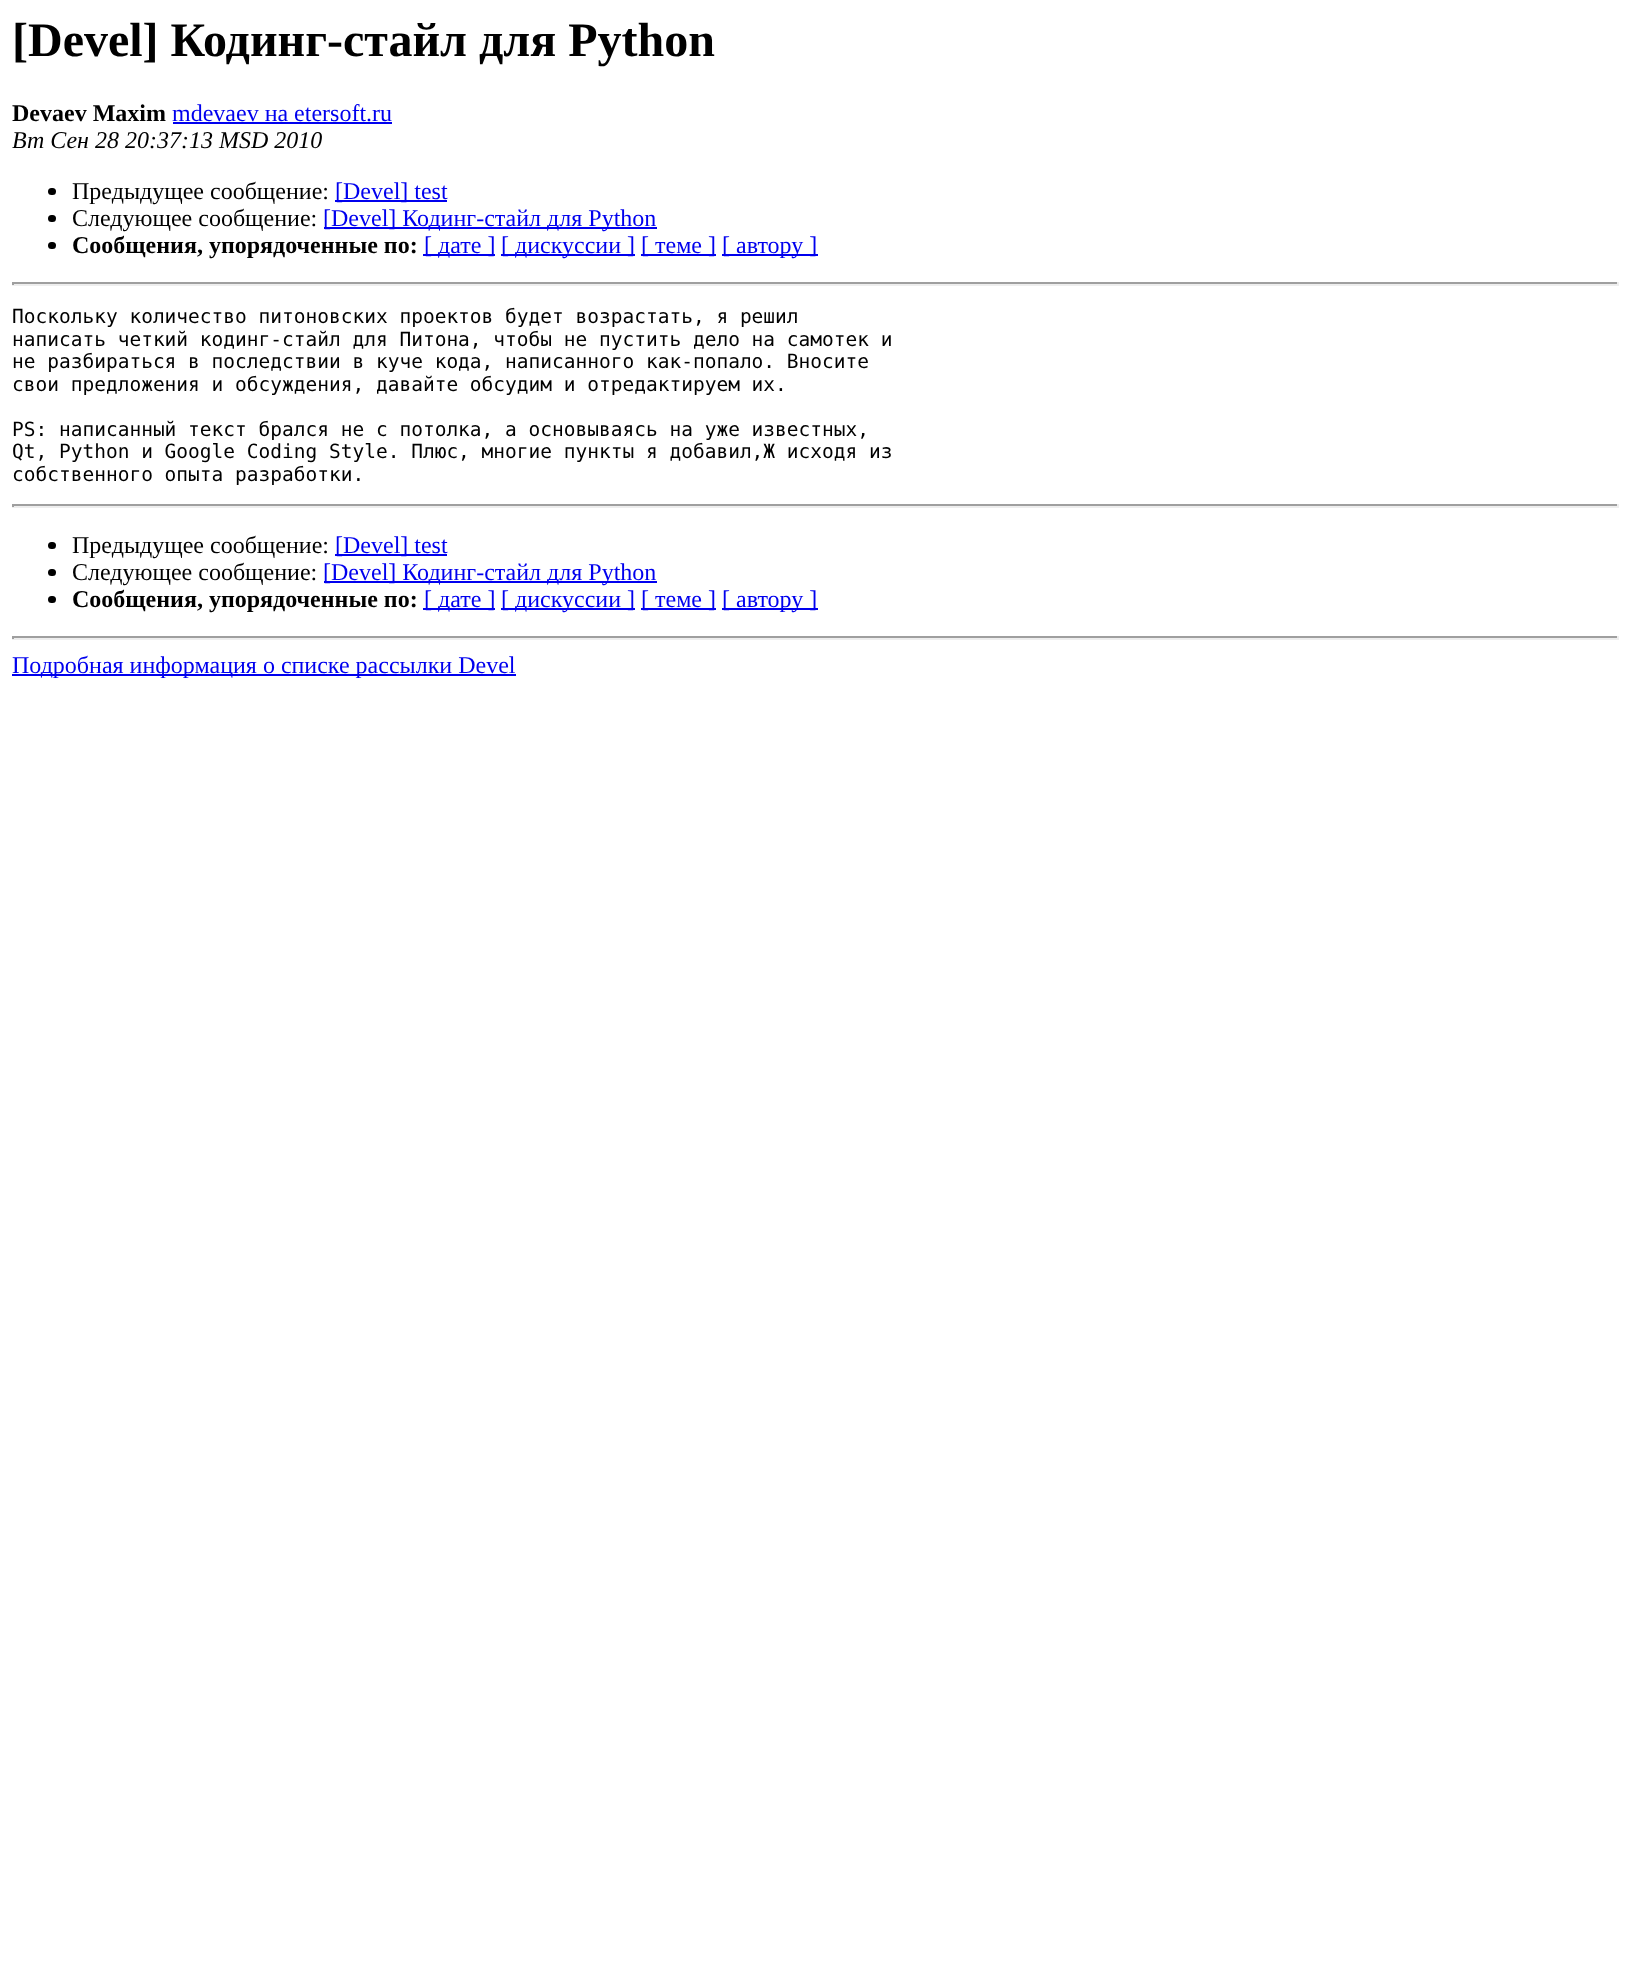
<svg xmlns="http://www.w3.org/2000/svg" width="1630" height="1979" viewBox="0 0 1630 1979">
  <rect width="100%" height="100%" fill="#fff"/>
  <path d="M173 122h219v2H173z" fill="#00e"/>
  <rect x="48" y="188" width="8" height="7" rx="3.5" fill="#000"/>
  <path d="M335 200h112v2H335z" fill="#00e"/>
  <rect x="48" y="215" width="8" height="7" rx="3.5" fill="#000"/>
  <path d="M324 227h333v2H324z" fill="#00e"/>
  <rect x="48" y="242" width="8" height="7" rx="3.5" fill="#000"/>
  <path d="M423 254h72v2H423z" fill="#00e"/>
  <path d="M501 254h134v2H501z" fill="#00e"/>
  <path d="M641 254h75v2H641z" fill="#00e"/>
  <path d="M722 254h96v2H722z" fill="#00e"/>
  <path d="M12 282h1607v2H12z" fill="#9f9f9f"/>
  <path d="M1617 282h2v3H1617z" fill="#eee"/>
  <path d="M12 284h1607v2H12z" fill="#eee"/>
  <path d="M12 282h2v3H12z" fill="#9f9f9f"/>
  <path d="M12 504h1607v2H12z" fill="#9f9f9f"/>
  <path d="M1617 504h2v3H1617z" fill="#eee"/>
  <path d="M12 506h1607v2H12z" fill="#eee"/>
  <path d="M12 504h2v3H12z" fill="#9f9f9f"/>
  <rect x="48" y="542" width="8" height="7" rx="3.5" fill="#000"/>
  <path d="M335 554h112v2H335z" fill="#00e"/>
  <rect x="48" y="569" width="8" height="7" rx="3.5" fill="#000"/>
  <path d="M324 581h333v2H324z" fill="#00e"/>
  <rect x="48" y="596" width="8" height="7" rx="3.5" fill="#000"/>
  <path d="M423 608h72v2H423z" fill="#00e"/>
  <path d="M501 608h134v2H501z" fill="#00e"/>
  <path d="M641 608h75v2H641z" fill="#00e"/>
  <path d="M722 608h96v2H722z" fill="#00e"/>
  <path d="M12 636h1607v2H12z" fill="#9f9f9f"/>
  <path d="M1617 636h2v3H1617z" fill="#eee"/>
  <path d="M12 638h1607v2H12z" fill="#eee"/>
  <path d="M12 636h2v3H12z" fill="#9f9f9f"/>
  <path d="M12 674h504v2H12z" fill="#00e"/>
  <text x="12" y="56" font-family="Liberation Serif" font-size="48" font-weight="bold" fill="#000">[Devel] Кодинг-стайл для Python</text>
  <text x="12" y="121" font-family="Liberation Serif" font-size="24" font-weight="bold" fill="#000">Devaev Maxim</text>
  <text x="172" y="121" font-family="Liberation Serif" font-size="24" fill="#00e">mdevaev на etersoft.ru</text>
  <text x="12" y="148" font-family="Liberation Serif" font-size="24" font-style="italic" fill="#000">Вт Сен 28 20:37:13 MSD 2010</text>
  <text x="72" y="199" font-family="Liberation Serif" font-size="24" fill="#000">Предыдущее сообщение:</text>
  <text x="335" y="199" font-family="Liberation Serif" font-size="24" fill="#00e">[Devel] test</text>
  <text x="72" y="226" font-family="Liberation Serif" font-size="24" fill="#000">Следующее сообщение:</text>
  <text x="323" y="226" font-family="Liberation Serif" font-size="24" fill="#00e">[Devel] Кодинг-стайл для Python</text>
  <text x="72" y="253" font-family="Liberation Serif" font-size="24" font-weight="bold" fill="#000">Сообщения, упорядоченные по:</text>
  <g font-family="Liberation Serif" font-size="24" fill="#00e">
    <text x="424" y="253">[ дате ]</text>
    <text x="501" y="253">[ дискуссии ]</text>
    <text x="641" y="253">[ теме ]</text>
    <text x="722" y="253">[ автору ]</text>
  </g>
  <g font-family="DejaVu Sans Mono" font-size="19.5" fill="#000">
    <text x="12" y="323">Поскольку количество питоновских проектов будет возрастать, я решил</text>
    <text x="12" y="346">написать четкий кодинг-стайл для Питона, чтобы не пустить дело на самотек и</text>
    <text x="12" y="368">не разбираться в последствии в куче кода, написанного как-попало. Вносите</text>
    <text x="12" y="391">свои предложения и обсуждения, давайте обсудим и отредактируем их.</text>
    <text x="12" y="436">PS: написанный текст брался не с потолка, а основываясь на уже известных,</text>
    <text x="12" y="458">Qt, Python и Google Coding Style. Плюс, многие пункты я добавил,Ж исходя из</text>
    <text x="12" y="481">собственного опыта разработки.</text>
  </g>
  <text x="72" y="553" font-family="Liberation Serif" font-size="24" fill="#000">Предыдущее сообщение:</text>
  <text x="335" y="553" font-family="Liberation Serif" font-size="24" fill="#00e">[Devel] test</text>
  <text x="72" y="580" font-family="Liberation Serif" font-size="24" fill="#000">Следующее сообщение:</text>
  <text x="323" y="580" font-family="Liberation Serif" font-size="24" fill="#00e">[Devel] Кодинг-стайл для Python</text>
  <text x="72" y="607" font-family="Liberation Serif" font-size="24" font-weight="bold" fill="#000">Сообщения, упорядоченные по:</text>
  <g font-family="Liberation Serif" font-size="24" fill="#00e">
    <text x="424" y="607">[ дате ]</text>
    <text x="501" y="607">[ дискуссии ]</text>
    <text x="641" y="607">[ теме ]</text>
    <text x="722" y="607">[ автору ]</text>
    <text x="12" y="673">Подробная информация о списке рассылки Devel</text>
  </g>
</svg>
